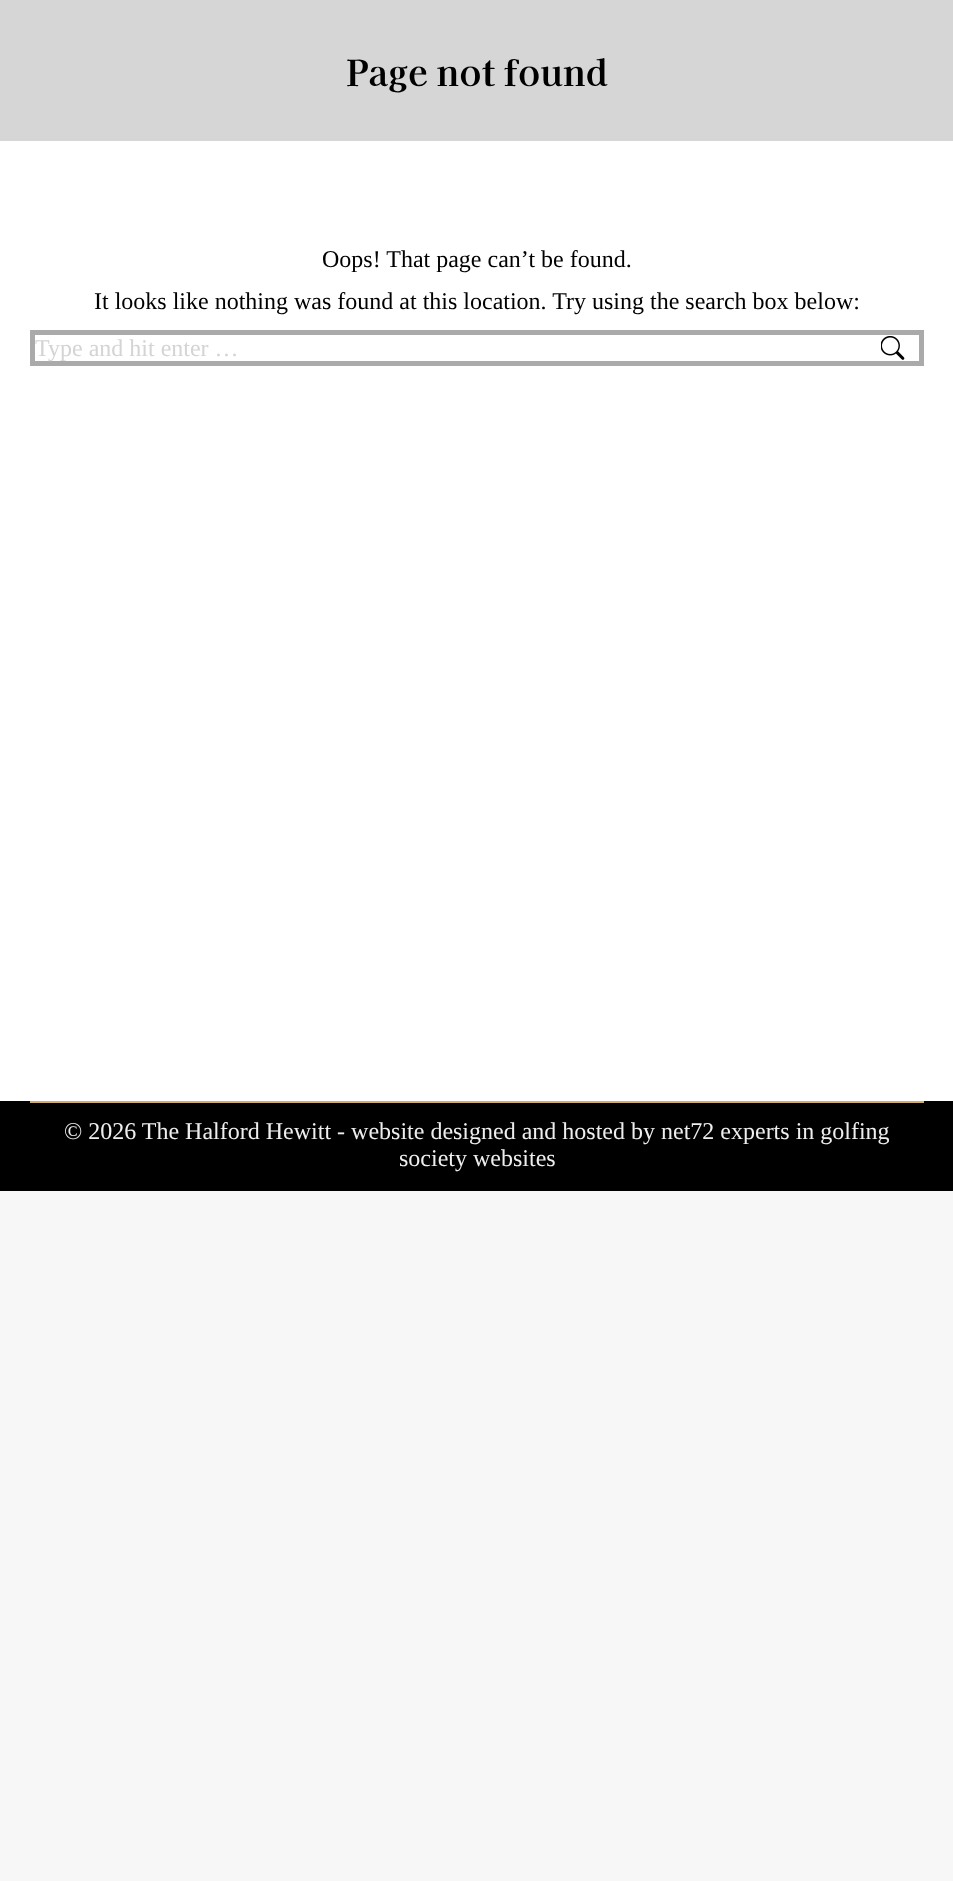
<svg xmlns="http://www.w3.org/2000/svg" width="953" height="1881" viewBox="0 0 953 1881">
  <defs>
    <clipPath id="clip1"><path d="M35 335h840v27H35z"/></clipPath>
  </defs>
  <rect width="100%" height="100%" fill="#f7f7f7"/>
  <path d="M0 141h953v960H0z" fill="#fff"/>
  <path d="M0 0h953v141H0z" fill="#d6d6d6"/>
  <path d="M32.5 332.5h889v31H32.5z" fill="none" stroke="#aaa" stroke-width="5"/>
  <image x="881" y="336" width="24" height="24" href="img/1.png"/>
  <path d="M0 1101h953v90H0z" fill="#000"/>
  <path d="M30 1101h894v2H30z" fill="#d2ae6d"/>
  <text x="346" y="86" font-family="Kaisei Tokumin" font-size="36" font-weight="bold" fill="#000">Page not found</text>
  <g font-family="Liberation Serif" font-size="24" fill="#000">
    <text x="322" y="267">Oops! That page can’t be found.</text>
    <text x="94" y="309">It looks like nothing was found at this location. Try using the search box below:</text>
  </g>
  <g clip-path="url(#clip1)">
    <text x="35" y="356" font-family="Liberation Serif" font-size="24" fill="#d4d4d4">Type and hit enter …</text>
  </g>
  <g font-family="Liberation Serif" font-size="24" fill="#eee">
    <text x="64" y="1139">© 2026 The Halford Hewitt - website designed and hosted by net72 experts in golfing</text>
    <text x="399" y="1166">society websites</text>
  </g>
</svg>
